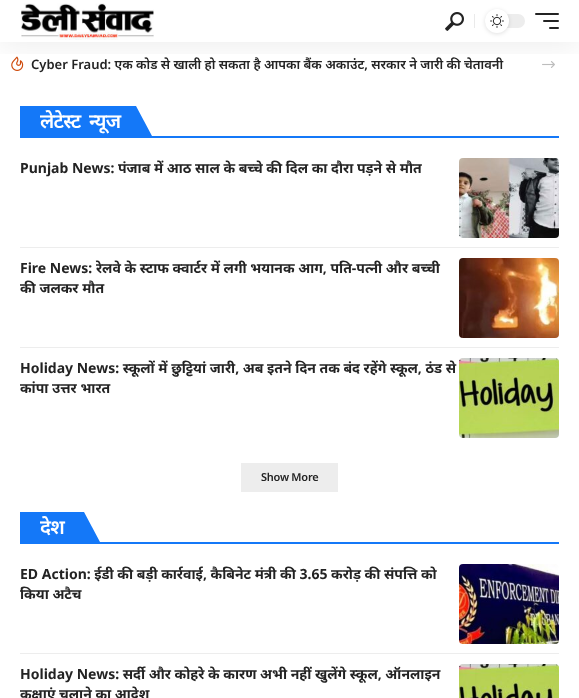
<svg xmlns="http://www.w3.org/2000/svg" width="579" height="698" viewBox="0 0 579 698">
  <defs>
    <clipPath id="clip1"><path d="M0 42h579v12H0z"/></clipPath>
  </defs>
  <rect width="100%" height="100%" fill="#fff"/>
  <image x="11" y="56" width="13" height="15" href="img/4.png"/>
  <image x="542" y="61" width="13" height="7" href="img/5.png"/>
  <g clip-path="url(#clip1)">
    <path d="M0 4h579v42H0z" fill="#00000012" filter="blur(15px)"/>
  </g>
  <image x="21" y="3" width="133" height="37" href="img/1.png"/>
  <image x="445" y="12" width="19" height="19" href="img/2.png"/>
  <path d="M474 14h1v14H474z" fill="#eaeaea"/>
  <rect x="485" y="14" width="40" height="14" rx="7" fill="#ededed"/>
  <rect x="485" y="10" width="24" height="24" rx="12" fill="#0000001f" filter="blur(2px)"/>
  <circle cx="497" cy="21" r="12" fill="#fff"/>
  <image x="490" y="14" width="14" height="14" href="img/3.png"/>
  <rect x="535" y="13" width="24" height="2" rx="1" fill="#232323"/>
  <rect x="543" y="20" width="16" height="2" rx="1" fill="#232323"/>
  <rect x="549" y="27" width="10" height="2" rx="1" fill="#232323"/>
  <path d="M20 136h539v2H20z" fill="#1478f8"/>
  <path d="M20 106h116v30H20z" fill="#1478f8"/>
  <path d="M136 136V106L152 136Z" fill="#1478f8"/>
  <image x="459" y="158" width="100" height="80" href="img/6.png"/>
  <path d="M20 247h539v1H20z" fill="#ededed"/>
  <image x="459" y="258" width="100" height="80" href="img/7.png"/>
  <path d="M20 347h539v1H20z" fill="#ededed"/>
  <image x="459" y="358" width="100" height="80" href="img/8.png"/>
  <path d="M241 463h97v29H241z" fill="#ededed"/>
  <path d="M20 542h539v2H20z" fill="#1478f8"/>
  <path d="M20 512h64v30H20z" fill="#1478f8"/>
  <path d="M84 542V512L100 542Z" fill="#1478f8"/>
  <image x="459" y="564" width="100" height="80" href="img/9.png"/>
  <path d="M20 653h539v1H20z" fill="#ededed"/>
  <image x="459" y="664" width="100" height="34" href="img/10.png"/>
  <text x="31" y="69" font-family="Noto Sans" font-size="13" font-weight="600" fill="#232323">Cyber Fraud: एक कोड से खाली हो सकता है आपका बैंक अकाउंट, सरकार ने जारी की चेतावनी</text>
  <text x="40" y="128" word-spacing="4" font-family="Noto Sans" font-size="20" font-weight="600" letter-spacing="-0.75" fill="#fff">लेटेस्ट न्यूज</text>
  <g font-family="Noto Sans" font-size="14" font-weight="bold" fill="#232323">
    <text x="20" y="173">Punjab News: पंजाब में आठ साल के बच्चे की दिल का दौरा पड़ने से मौत</text>
    <text x="20" y="273">Fire News: रेलवे के स्टाफ क्वार्टर में लगी भयानक आग, पति-पत्नी और बच्ची</text>
    <text x="20" y="293">की जलकर मौत</text>
    <text x="20" y="373">Holiday News: स्कूलों में छुट्टियां जारी, अब इतने दिन तक बंद रहेंगे स्कूल, ठंड से</text>
    <text x="20" y="393">कांपा उत्तर भारत</text>
  </g>
  <text x="261" y="481" font-family="Noto Sans" font-size="11" font-weight="600" letter-spacing="-0.25" fill="#232323">Show More</text>
  <text x="40" y="534" font-family="Noto Sans" font-size="20" font-weight="600" letter-spacing="-0.75" fill="#fff">देश</text>
  <g font-family="Noto Sans" font-size="14" font-weight="bold" fill="#232323">
    <text x="20" y="579">ED Action: ईडी की बड़ी कार्रवाई, कैबिनेट मंत्री की 3.65 करोड़ की संपत्ति को</text>
    <text x="20" y="599">किया अटैच</text>
    <text x="20" y="679">Holiday News: सर्दी और कोहरे के कारण अभी नहीं खुलेंगे स्कूल, ऑनलाइन</text>
    <text x="20" y="699">कक्षाएं चलाने का आदेश</text>
  </g>
</svg>
